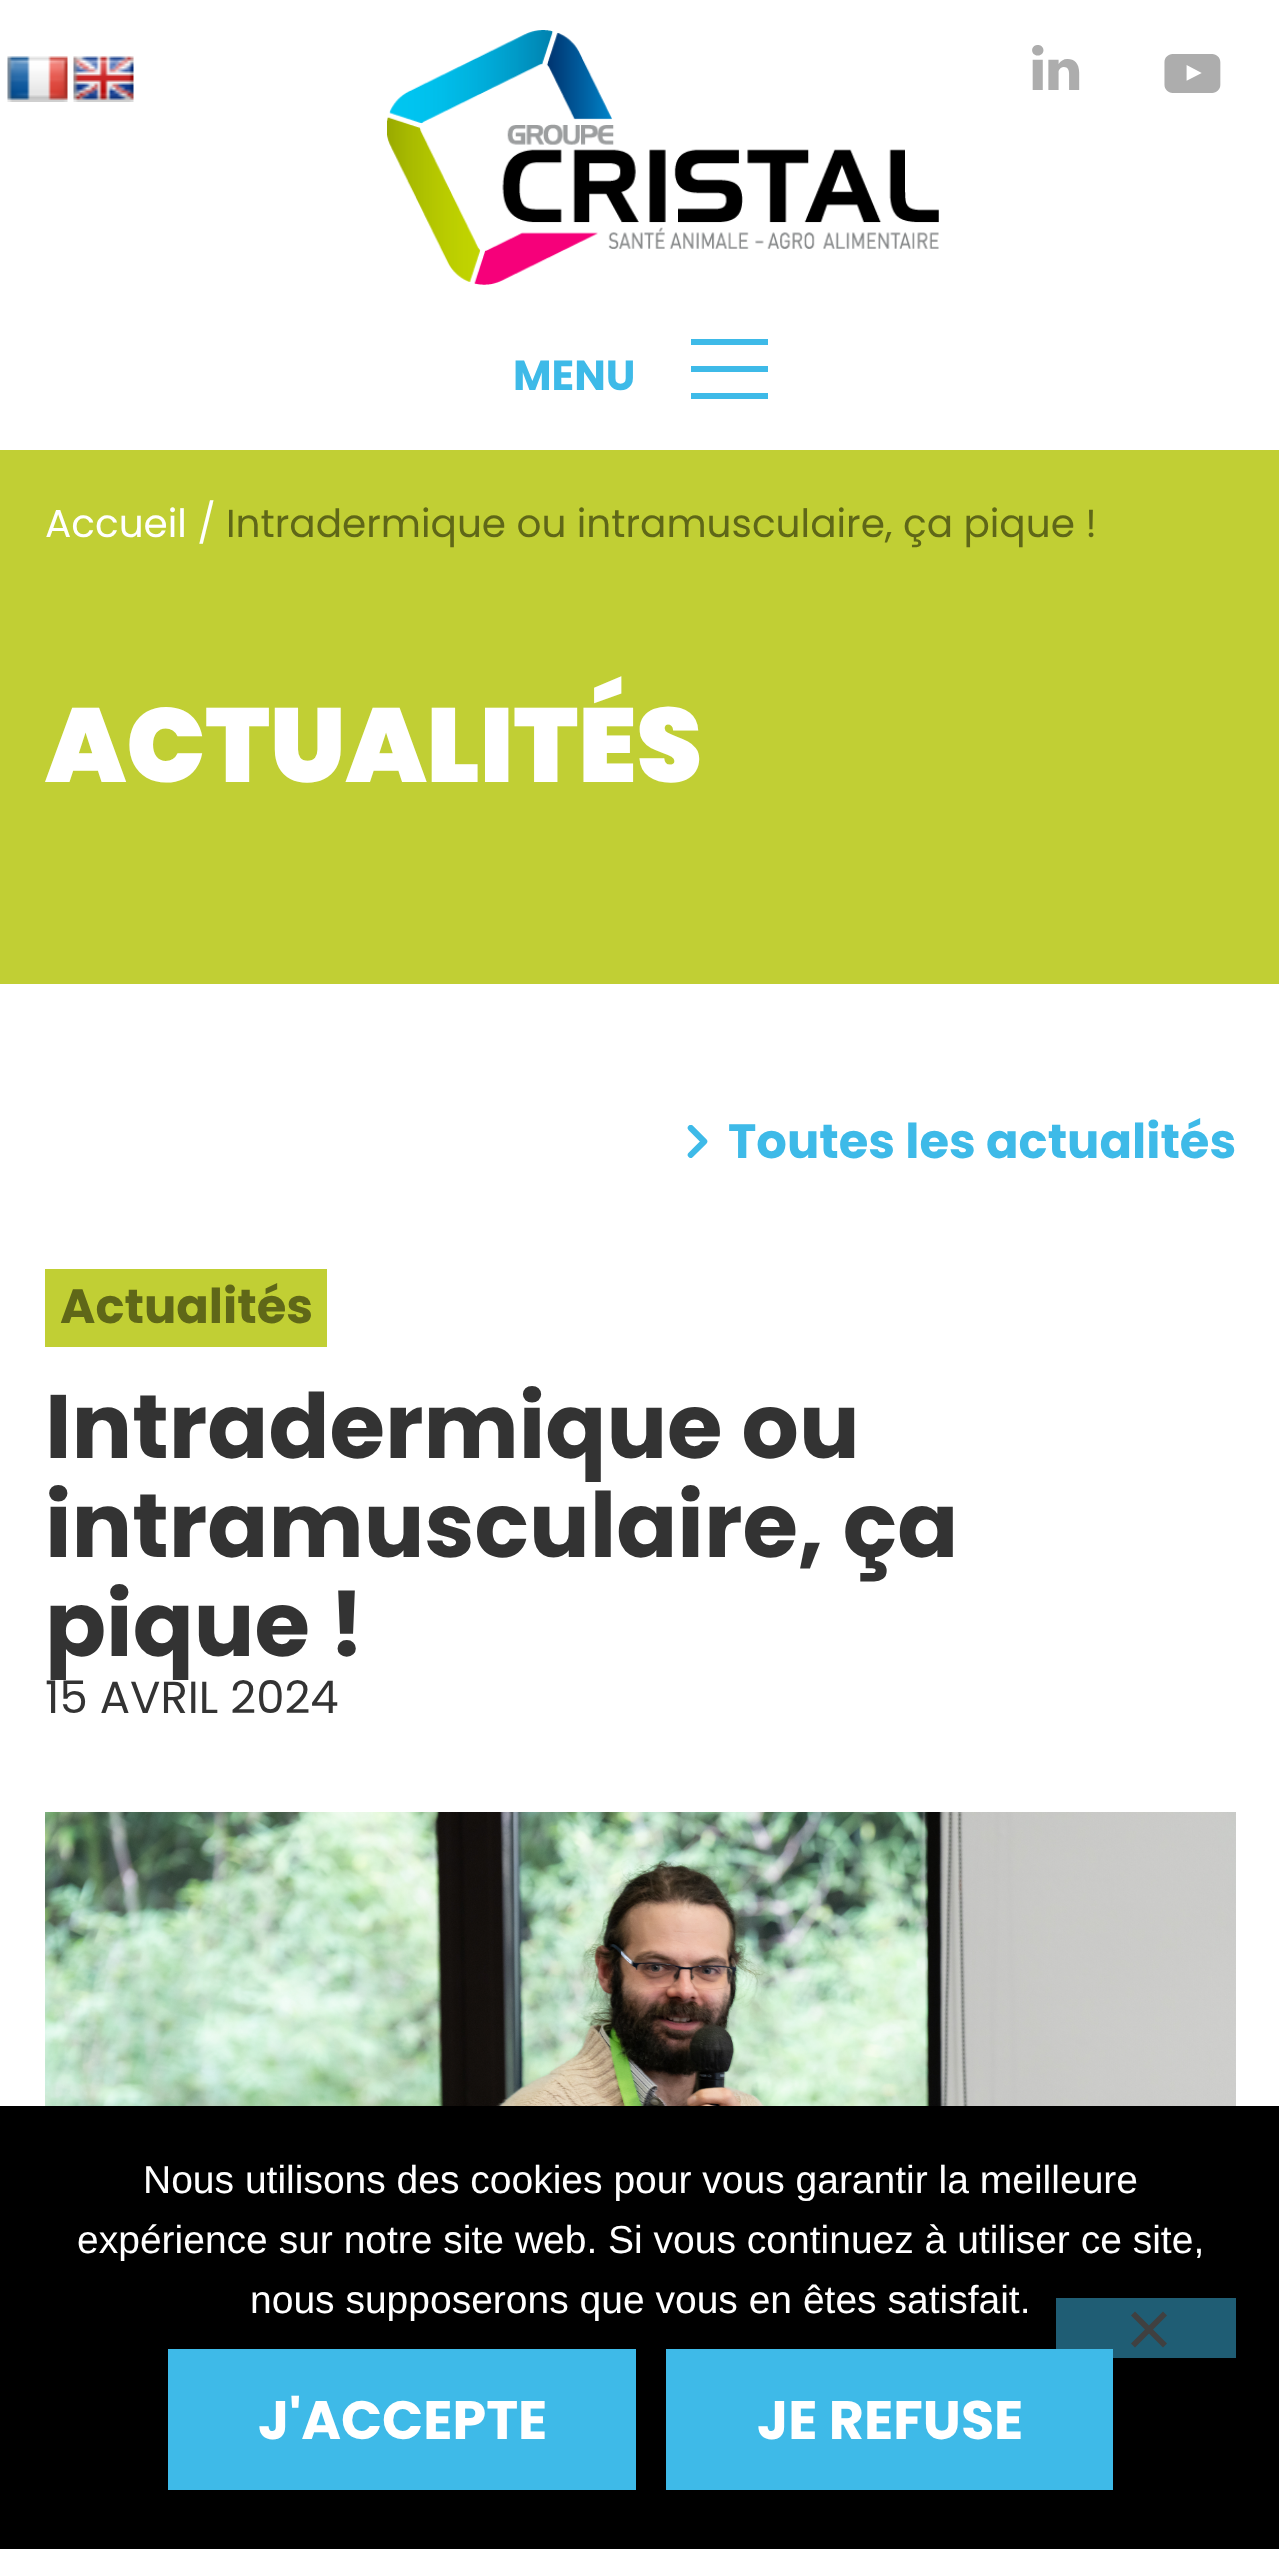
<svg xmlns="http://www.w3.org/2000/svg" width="1279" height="2549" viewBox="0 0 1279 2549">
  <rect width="100%" height="100%" fill="#fff"/>
  <image x="7" y="56" width="61" height="46" href="img/1.png"/>
  <image x="73" y="56" width="61" height="46" href="img/2.png"/>
  <image x="387" y="30" width="552" height="255" href="img/3.png"/>
  <image x="1032" y="45" width="48" height="45" href="img/4.png"/>
  <image x="1164" y="54" width="57" height="39" href="img/5.png"/>
  <path d="M691 339h77v6H691z" fill="#3ebae8"/>
  <path d="M691 366h77v6H691z" fill="#3ebae8"/>
  <path d="M691 393h77v6H691z" fill="#3ebae8"/>
  <path d="M0 450h1279v534H0z" fill="#c1cf34"/>
  <image x="687" y="1125" width="21" height="33" href="img/6.png"/>
  <path d="M45 1269h282v78H45z" fill="#c1cf34"/>
  <image x="45" y="1812" width="1191" height="294" href="img/7.png"/>
  <path d="M0 2106h1279v443H0z" fill="#000"/>
  <path d="M666 2349h447v141H666z" fill="#3ebae8"/>
  <path d="M1056 2298h180v60H1056z" fill="#3ebae880"/>
  <path d="M1163 2311.5L1167 2315.5L1135 2347.5L1131 2343.5Z" fill="#404040"/>
  <path d="M1131 2315.5L1135 2311.5L1167 2343.5L1163 2347.5Z" fill="#404040"/>
  <path d="M168 2349h468v141H168z" fill="#3ebae8"/>
  <text x="513" y="390" font-family="Poppins" font-size="42" font-weight="bold" fill="#3ebae8">MENU</text>
  <text x="45" y="537" font-family="Poppins" font-size="39" fill="#fff">Accueil /</text>
  <text x="226" y="537" font-family="Poppins" font-size="39" fill="#5f6718">Intradermique ou intramusculaire, ça pique !</text>
  <text x="45" y="782" font-family="Poppins" font-size="105" font-weight="900" fill="#fff">ACTUALITÉS</text>
  <text x="728" y="1158" font-family="Poppins" font-size="48" font-weight="bold" fill="#3ebae8">Toutes les actualités</text>
  <text x="60" y="1323" font-family="Poppins" font-size="48" font-weight="bold" fill="#5f6718">Actualités</text>
  <g font-family="Poppins" font-size="90" font-weight="bold" fill="#333">
    <text x="45" y="1458">Intradermique ou</text>
    <text x="45" y="1557">intramusculaire, ça</text>
    <text x="45" y="1656">pique !</text>
  </g>
  <text x="45" y="1713" font-family="Poppins" font-size="45" fill="#333">15 AVRIL 2024</text>
  <g font-family="Liberation Sans" font-size="39" fill="#fff">
    <text x="143" y="2193">Nous utilisons des cookies pour vous garantir la meilleure</text>
    <text x="77" y="2253">expérience sur notre site web. Si vous continuez à utiliser ce site,</text>
    <text x="250" y="2313">nous supposerons que vous en êtes satisfait.</text>
  </g>
  <g font-family="Poppins" font-size="54" font-weight="bold" fill="#fff">
    <text x="258" y="2439">J'ACCEPTE</text>
    <text x="757" y="2439">JE REFUSE</text>
  </g>
</svg>
